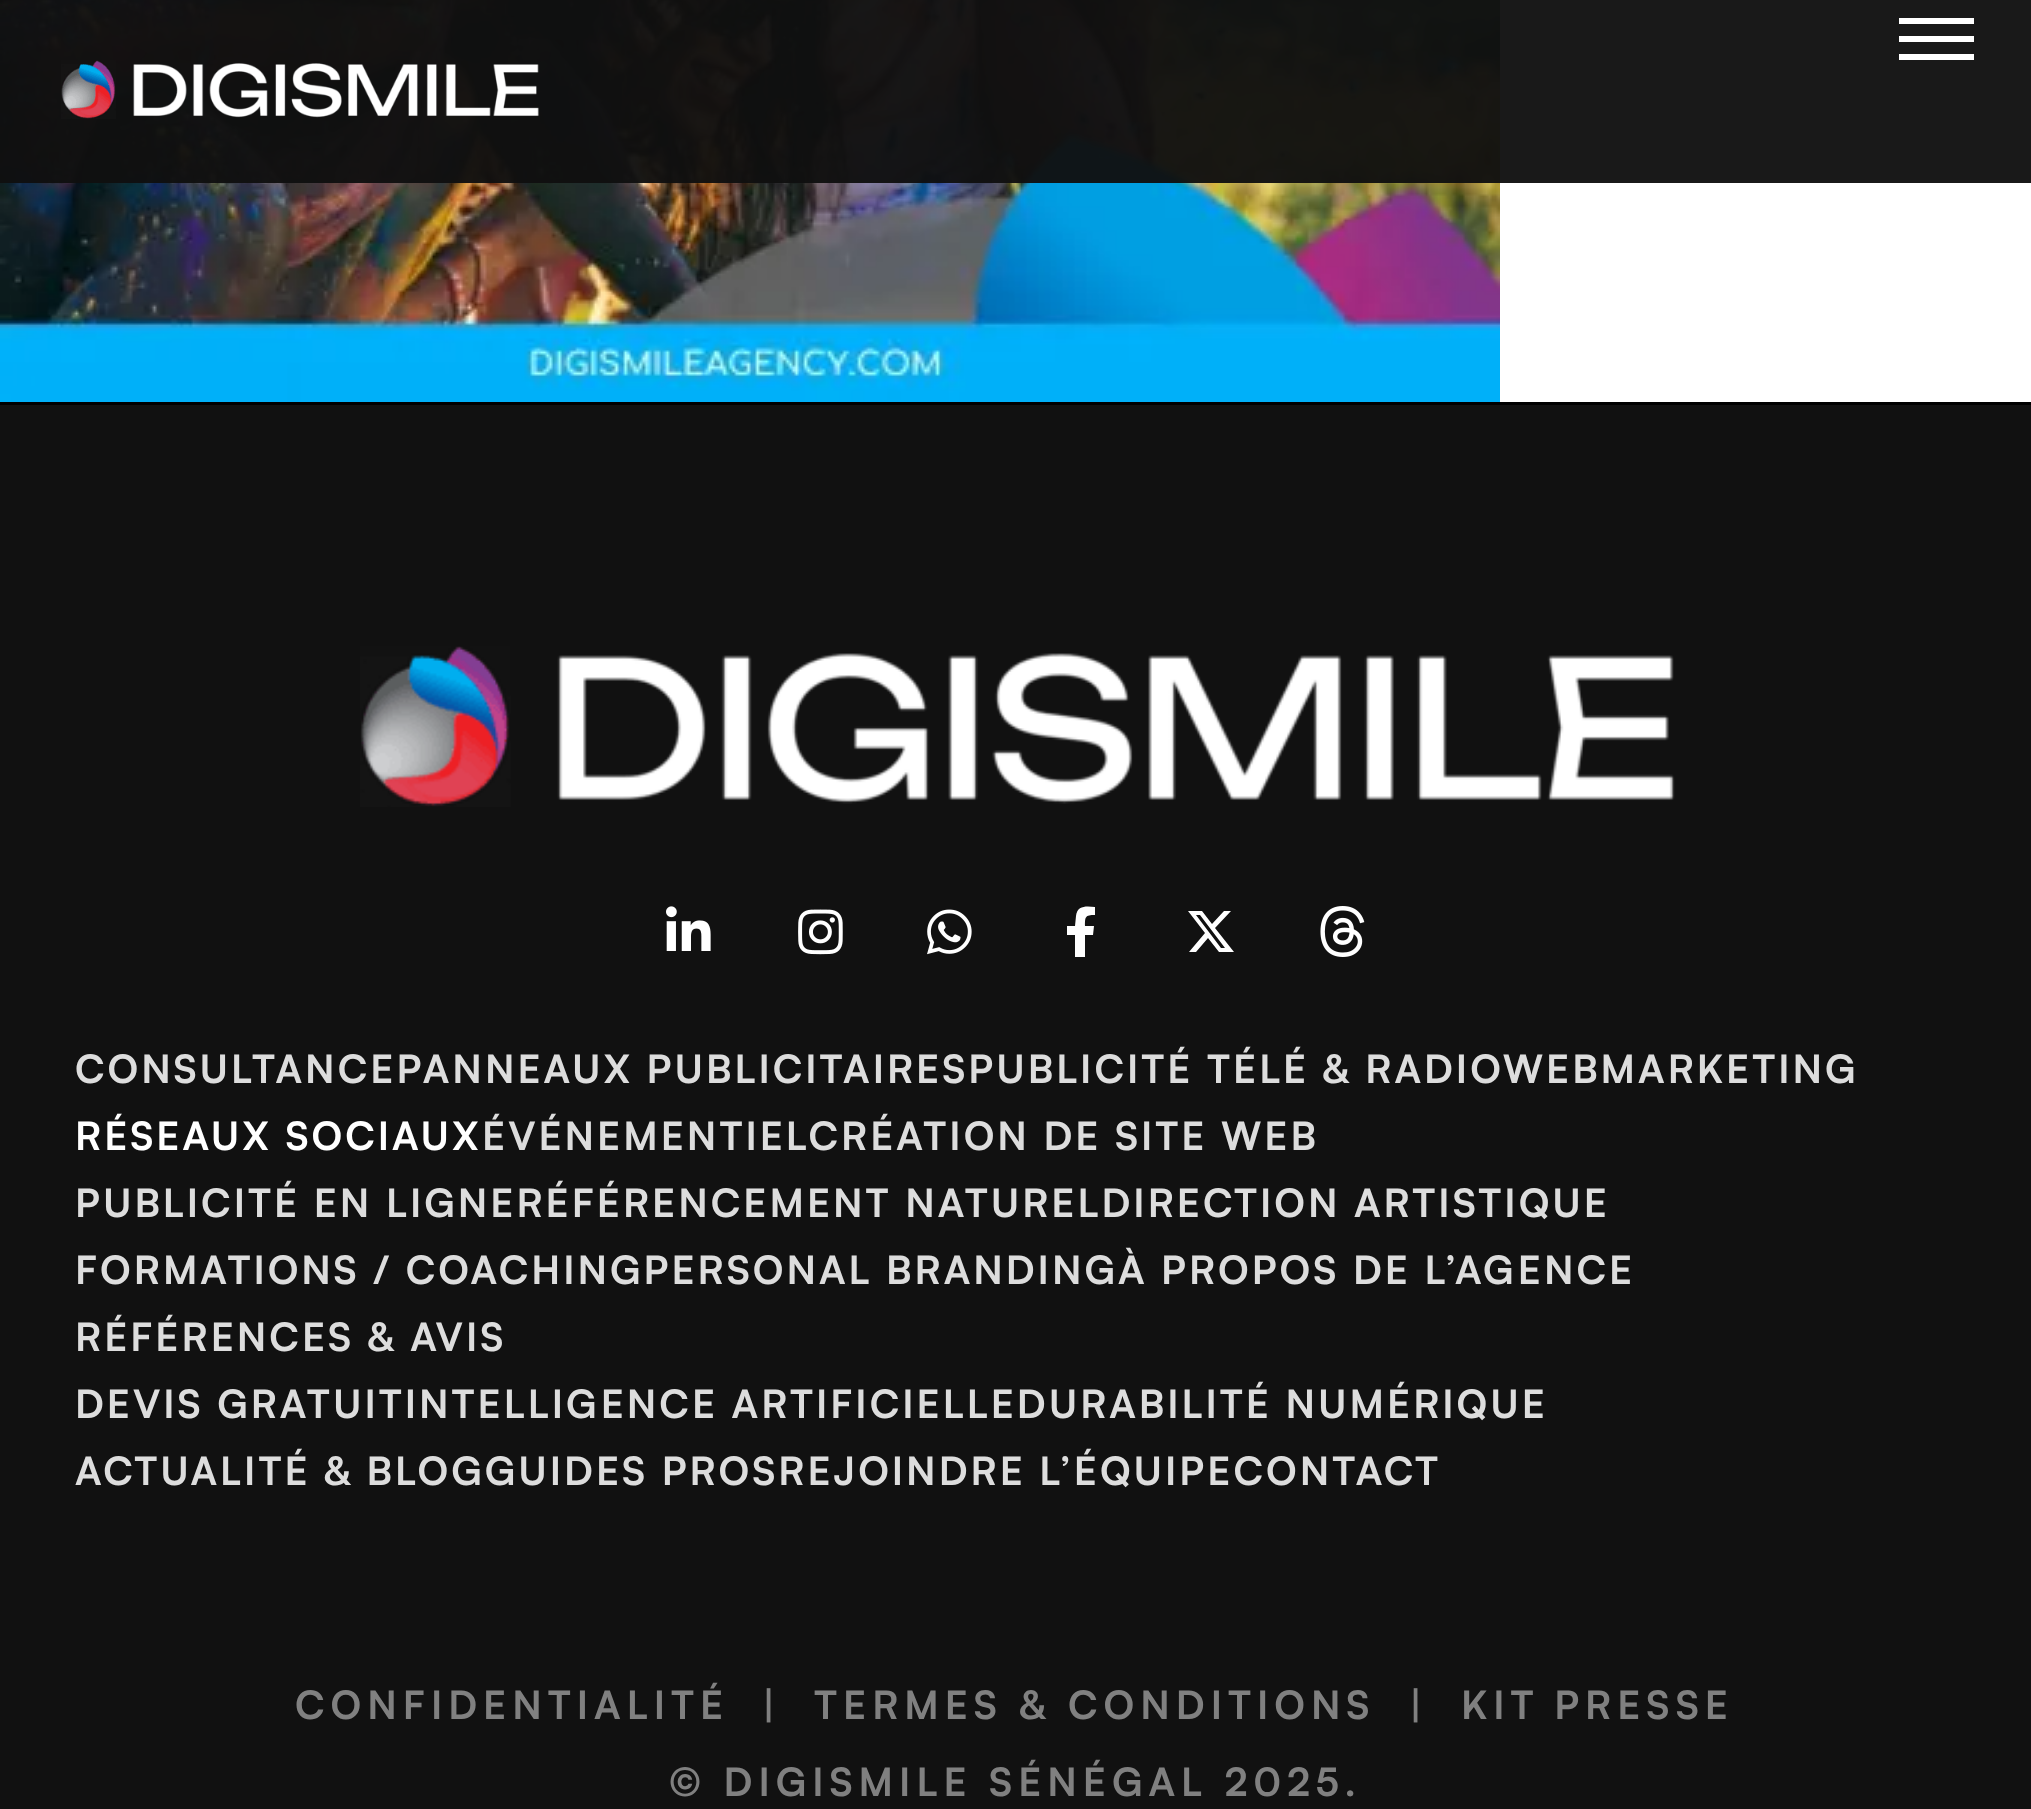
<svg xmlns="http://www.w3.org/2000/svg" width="2031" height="1809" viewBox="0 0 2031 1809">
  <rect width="100%" height="100%" fill="#fff"/>
  <image x="0" y="0" width="1500" height="402" href="img/1.png"/>
  <path d="M0 0h2031v183H0z" fill="#101010f5"/>
  <path d="M1899 36h75v6H1899z" fill="#fff"/>
  <path d="M1899 18h75v6H1899z" fill="#fff"/>
  <path d="M1899 54h75v6H1899z" fill="#fff"/>
  <image x="61" y="60" width="478" height="59" href="img/2.png"/>
  <path d="M0 402h2031v3H0z" fill="#000"/>
  <path d="M0 405h2031v1404H0z" fill="#111"/>
  <image x="360" y="646" width="1315" height="161" href="img/3.png"/>
  <image x="666" y="906" width="45" height="45" href="img/4.png"/>
  <image x="798" y="909" width="45" height="46" href="img/5.png"/>
  <image x="927" y="909" width="45" height="46" href="img/6.png"/>
  <path d="M1093 935H1085V957H1075V935H1067V926H1075L1076 916C1077 905 1087 906 1095 907V915C1085 915 1085 917 1085 926H1094Z" fill="#fff"/>
  <path d="M1224 911H1231L1215 928L1234 952H1219L1208 938L1196 952H1189L1205 933L1188 911H1202L1212 924ZM1221 948H1225L1200 915H1196Z" fill="#fff"/>
  <image x="1320" y="906" width="45" height="51" href="img/7.png"/>
  <text x="75" y="1083" font-family="Satoshi" font-size="39" font-weight="bold" letter-spacing="3" fill="#ddd">CONSULTANCEPANNEAUX PUBLICITAIRESPUBLICITÉ TÉLÉ &amp; RADIOWEBMARKETING</text>
  <text x="75" y="1150" font-family="Satoshi" font-size="39" font-weight="bold" letter-spacing="3" fill="#fff">RÉSEAUX SOCIAUX</text>
  <g font-family="Satoshi" font-size="39" font-weight="bold" letter-spacing="3" fill="#ddd">
    <text x="482" y="1150">ÉVÉNEMENTIELCRÉATION DE SITE WEB</text>
    <text x="75" y="1217">PUBLICITÉ EN LIGNERÉFÉRENCEMENT NATURELDIRECTION ARTISTIQUE</text>
    <text x="75" y="1284">FORMATIONS / COACHINGPERSONAL BRANDINGÀ PROPOS DE L’AGENCE</text>
    <text x="75" y="1351">RÉFÉRENCES &amp; AVIS</text>
    <text x="75" y="1418">DEVIS GRATUITINTELLIGENCE ARTIFICIELLEDURABILITÉ NUMÉRIQUE</text>
    <text x="75" y="1485">ACTUALITÉ &amp; BLOGGUIDES PROSREJOINDRE L’ÉQUIPECONTACT</text>
  </g>
  <g font-family="Satoshi" font-size="39" font-weight="bold" letter-spacing="6" fill="#808080">
    <text x="295" y="1719">CONFIDENTIALITÉ</text>
    <text x="762" y="1719">|</text>
    <text x="814" y="1719">TERMES &amp; CONDITIONS</text>
    <text x="1409" y="1719">|</text>
    <text x="1461" y="1719" word-spacing="-2">KIT PRESSE</text>
    <text x="669" y="1796">© DIGISMILE SÉNÉGAL 2025.</text>
  </g>
</svg>
